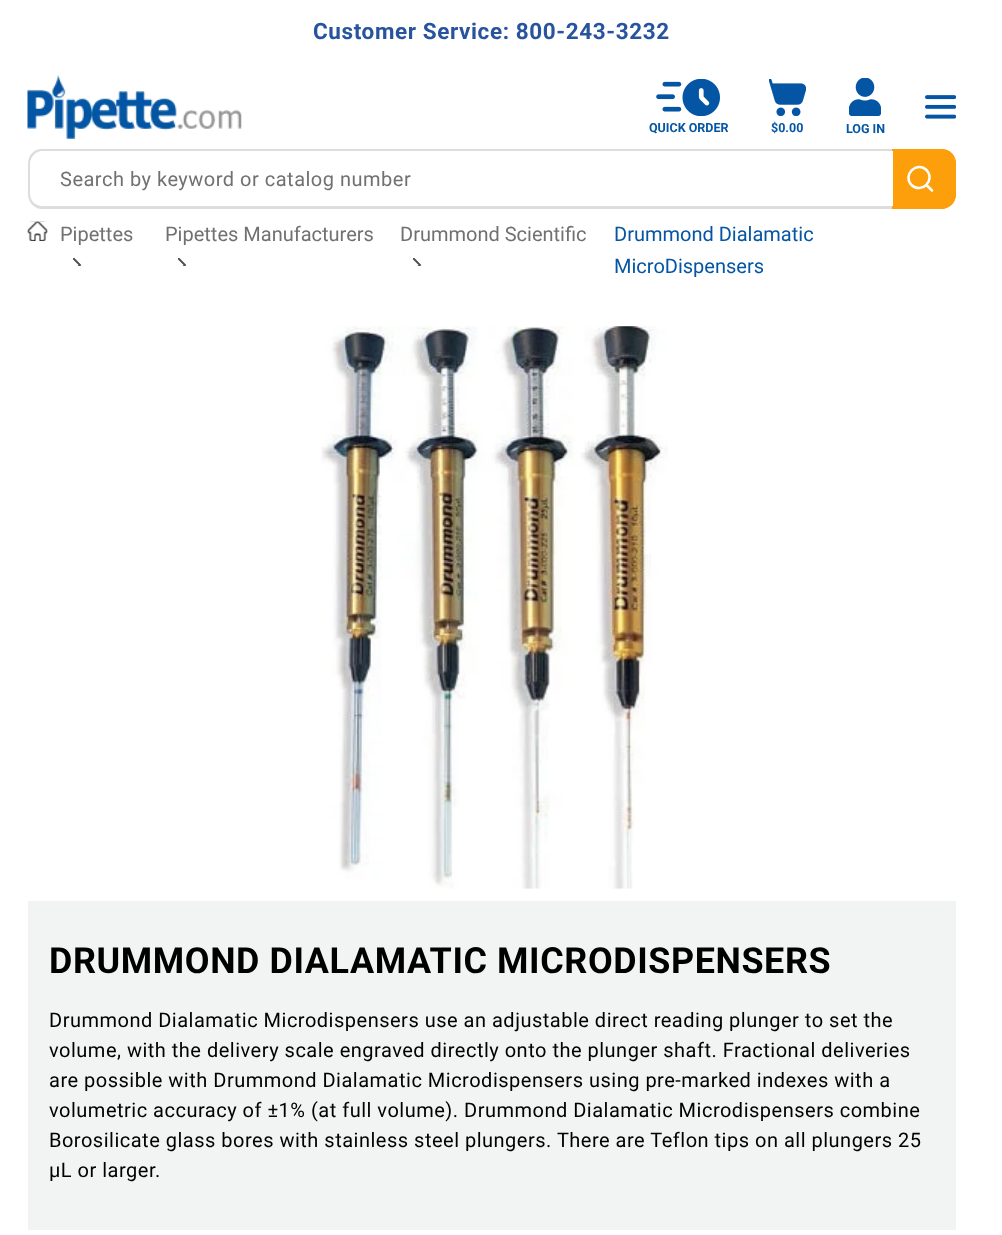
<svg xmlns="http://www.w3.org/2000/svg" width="1002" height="1235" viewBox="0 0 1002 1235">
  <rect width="100%" height="100%" fill="#fff"/>
  <image x="27" y="75" width="215" height="64" href="img/1.png"/>
  <image x="925" y="95" width="31" height="24" href="img/2.png"/>
  <image x="656" y="79" width="64" height="37" href="img/3.png"/>
  <image x="769" y="79" width="37" height="37" href="img/4.png"/>
  <image x="849" y="78" width="32" height="38" href="img/5.png"/>
  <path d="M42 149H892V209H42C34 209 28 202 28 194V164C28 155 34 149 42 149ZM42 151H892V206H42C36 206 30 201 30 194V164C30 157 36 151 42 151Z" fill="#ddd" fill-rule="evenodd"/>
  <path d="M893 149H941C949.5 149 956 155.5 956 164V194C956 202.5 949.5 209 941 209H893Z" fill="#fd9f0a"/>
  <path d="M892 149H941C950 149 956 155 956 164V194C956 202 950 209 941 209H892ZM892 151H941C948 151 954 157 954 164V194C954 201 948 206 941 206H892Z" fill="#fd9f0a" fill-rule="evenodd"/>
  <path d="M926.5 170C936 180 921.5 194.5 911.5 185C902 175 917 160.5 926.5 170ZM932 190.5L926.5 185" fill="none" stroke="#fff" stroke-width="2.5" stroke-linecap="round" stroke-linejoin="round"/>
  <image x="27" y="221" width="21" height="21" href="img/6.png"/>
  <image x="73" y="258" width="9" height="8" href="img/7.png"/>
  <image x="178" y="258" width="9" height="8" href="img/7.png"/>
  <image x="413" y="258" width="9" height="8" href="img/7.png"/>
  <image x="321" y="326" width="347" height="563" href="img/8.png"/>
  <path d="M28 901h928v329H28z" fill="#f2f3f3"/>
  <text x="313" y="39" font-family="Roboto" font-size="22.5" font-weight="bold" letter-spacing="0.6" fill="#28549d">Customer Service: 800-243-3232</text>
  <g font-family="Roboto" font-size="12.5" font-weight="bold" fill="#0456a4">
    <text x="649" y="132">QUICK ORDER</text>
    <text x="771" y="132">$0.00</text>
    <text x="846" y="133">LOG IN</text>
  </g>
  <text x="60" y="186" font-family="Roboto" font-size="20" letter-spacing="0.5" fill="#717171">Search by keyword or catalog number</text>
  <g font-family="Roboto" font-size="20" fill="#717171">
    <text x="60" y="241">Pipettes</text>
    <text x="165" y="241">Pipettes Manufacturers</text>
    <text x="400" y="241">Drummond Scientific</text>
  </g>
  <g font-family="Roboto" font-size="20" fill="#0456a4">
    <text x="614" y="241">Drummond Dialamatic</text>
    <text x="614" y="273">MicroDispensers</text>
  </g>
  <text x="49" y="973" font-family="Roboto" font-size="35.9" font-weight="bold" letter-spacing="0.6" fill="#000">DRUMMOND DIALAMATIC MICRODISPENSERS</text>
  <g font-family="Roboto" font-size="20" letter-spacing="0.5" fill="#000">
    <text x="49" y="1027">Drummond Dialamatic Microdispensers use an adjustable direct reading plunger to set the</text>
    <text x="49" y="1057">volume, with the delivery scale engraved directly onto the plunger shaft. Fractional deliveries</text>
    <text x="49" y="1087">are possible with Drummond Dialamatic Microdispensers using pre-marked indexes with a</text>
    <text x="49" y="1117">volumetric accuracy of ±1% (at full volume). Drummond Dialamatic Microdispensers combine</text>
    <text x="49" y="1147">Borosilicate glass bores with stainless steel plungers. There are Teflon tips on all plungers 25</text>
    <text x="49" y="1177">µL or larger.</text>
  </g>
</svg>
